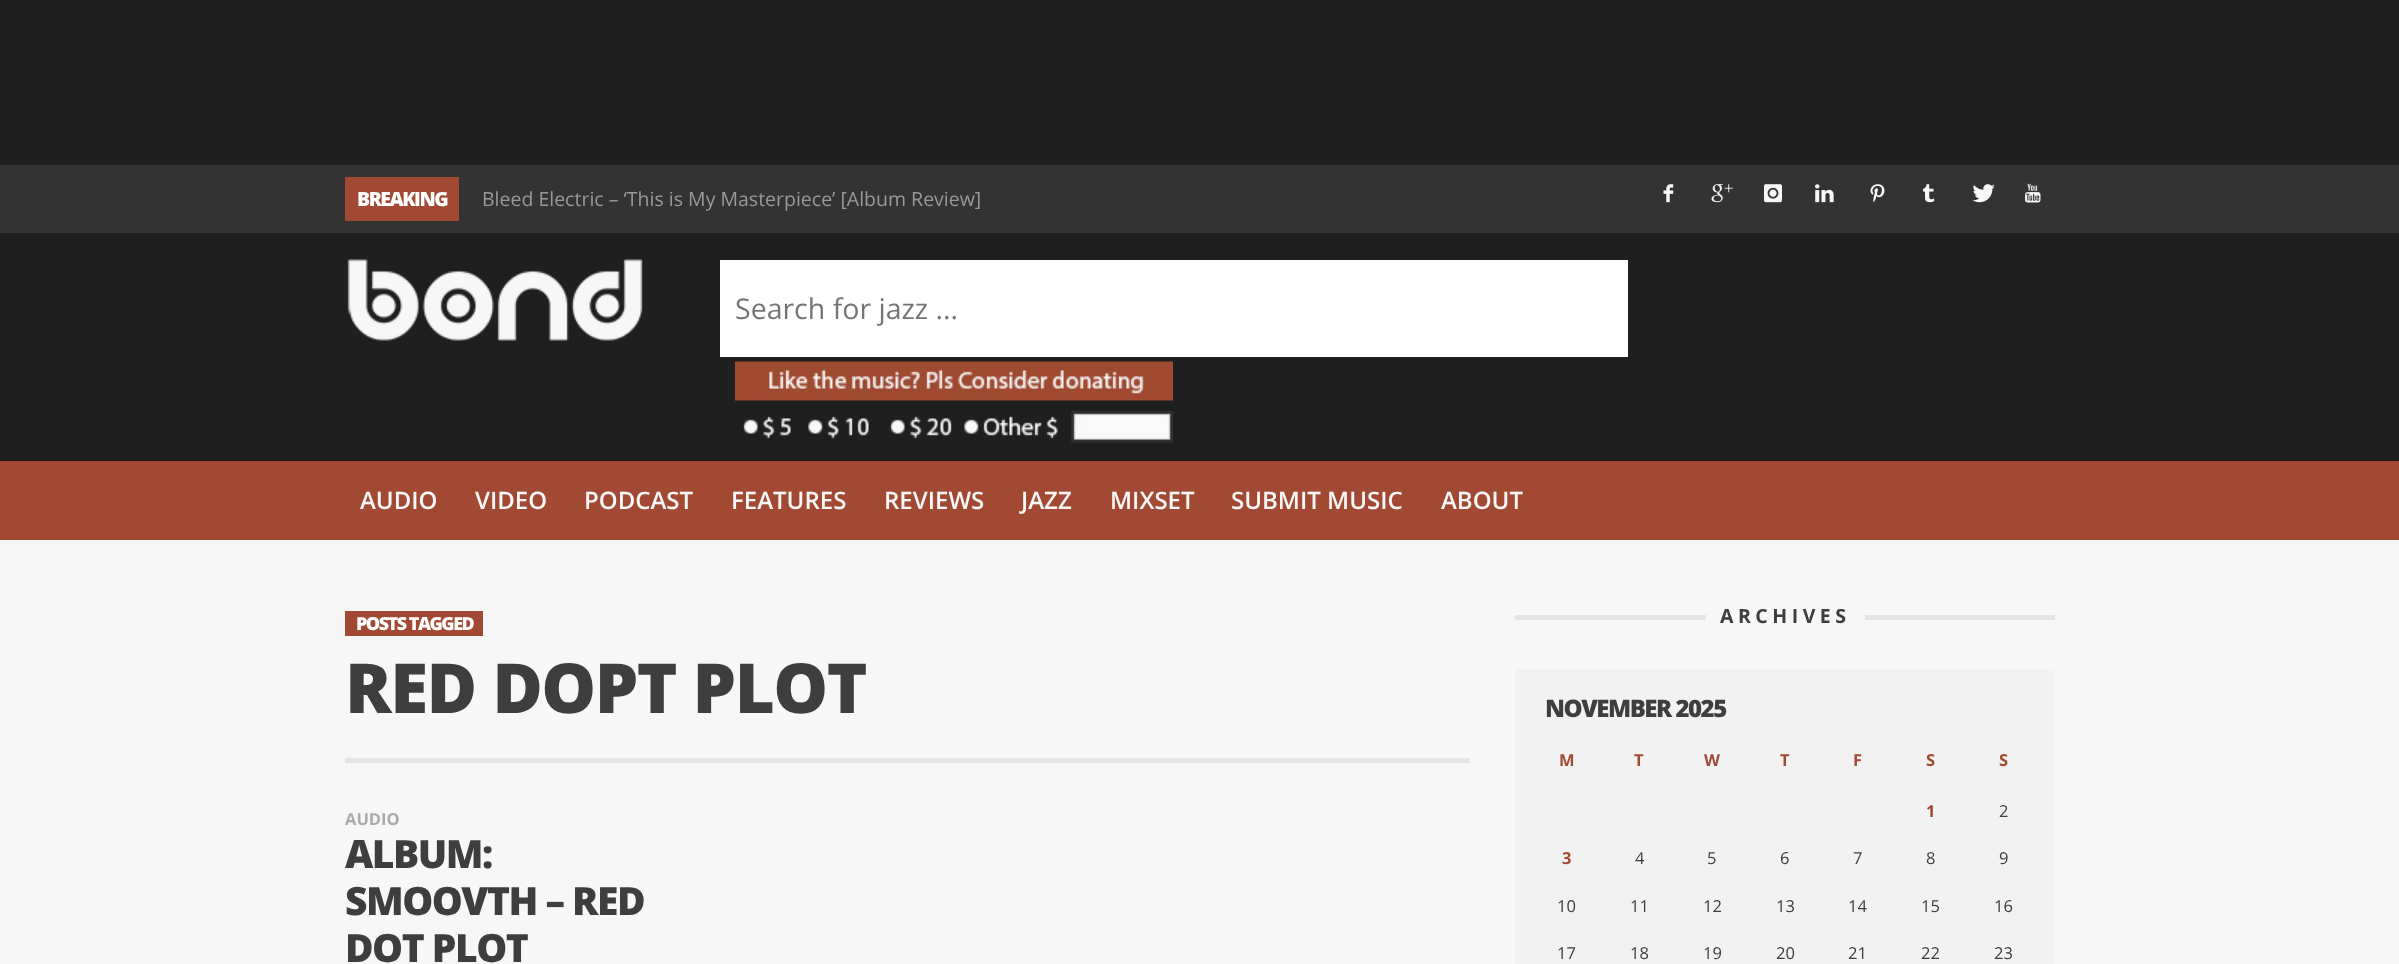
<svg xmlns="http://www.w3.org/2000/svg" width="2399" height="964" viewBox="0 0 2399 964">
  <rect width="100%" height="100%" fill="#f7f7f7"/>
  <path d="M0 0h2399v165H0z" fill="#1f1f1f"/>
  <path d="M0 165h2399v68H0z" fill="#333"/>
  <path d="M345 177h114v44H345z" fill="#a14933"/>
  <image x="1663" y="184" width="11" height="19" href="img/1.png"/>
  <image x="1711" y="184" width="22" height="19" href="img/2.png"/>
  <image x="1764" y="184" width="18" height="19" href="img/3.png"/>
  <image x="1815" y="184" width="19" height="19" href="img/4.png"/>
  <image x="1870" y="184" width="15" height="19" href="img/5.png"/>
  <image x="1923" y="184" width="12" height="19" href="img/6.png"/>
  <image x="1972" y="184" width="23" height="19" href="img/7.png"/>
  <image x="2025" y="183" width="16" height="20" href="img/8.png"/>
  <path d="M0 233h2399v228H0z" fill="#1f1f1f"/>
  <image x="347" y="259" width="296" height="82" href="img/9.png"/>
  <path d="M720 260h908v97H720z" fill="#fff"/>
  <image x="735" y="361" width="438" height="82" href="img/10.png"/>
  <path d="M0 461h2399v79H0z" fill="#a14933"/>
  <path d="M345 758h1125v5H345z" fill="#e5e5e5"/>
  <path d="M345 611h138v25H345z" fill="#a14933"/>
  <path d="M1515 615h191v5H1515z" fill="#e5e5e5"/>
  <path d="M1865 615h190v5H1865z" fill="#e5e5e5"/>
  <path d="M1515 669h540v295H1515z" fill="#f2f2f2"/>
  <text x="357" y="206" font-family="Open Sans" font-size="19.5" font-weight="800" letter-spacing="-1.5" fill="#fff">BREAKING</text>
  <text x="482" y="206" font-family="Open Sans" font-size="19.5" fill="#999">Bleed Electric – ‘This is My Masterpiece’ [Album Review]</text>
  <text x="735" y="319" font-family="Open Sans" font-size="28.5" fill="#757575">Search for jazz ...</text>
  <g font-family="Open Sans" font-size="24" font-weight="600" fill="#f7f7f7">
    <text x="360" y="509">AUDIO</text>
    <text x="475" y="509">VIDEO</text>
    <text x="584" y="509">PODCAST</text>
    <text x="731" y="509">FEATURES</text>
    <text x="884" y="509">REVIEWS</text>
    <text x="1021" y="509">JAZZ</text>
    <text x="1110" y="509">MIXSET</text>
    <text x="1231" y="509">SUBMIT MUSIC</text>
    <text x="1441" y="509">ABOUT</text>
  </g>
  <text x="356" y="630" font-family="Open Sans" font-size="18" font-weight="800" letter-spacing="-1.5" fill="#fff">POSTS TAGGED</text>
  <text x="345" y="713" font-family="Open Sans" font-size="69" font-weight="800" letter-spacing="-1.5" fill="#3e3e3e">RED DOPT PLOT</text>
  <text x="345" y="825" font-family="Open Sans" font-size="16.5" font-weight="bold" fill="#aaa">AUDIO</text>
  <g font-family="Open Sans" font-size="39" font-weight="800" letter-spacing="-1.5" fill="#3e3e3e">
    <text x="345" y="868">ALBUM:</text>
    <text x="345" y="915">SMOOVTH – RED</text>
    <text x="345" y="962">DOT PLOT</text>
  </g>
  <text x="1720" y="623" font-family="Open Sans" font-size="19.5" font-weight="bold" letter-spacing="4.5" fill="#3e3e3e">ARCHIVES</text>
  <text x="1545" y="717" font-family="Open Sans" font-size="24" font-weight="800" letter-spacing="-1.5" fill="#3e3e3e">NOVEMBER 2025</text>
  <g font-family="Open Sans" font-size="16.5" font-weight="bold" fill="#a14933">
    <text x="1559" y="766">M</text>
    <text x="1634" y="766">T</text>
    <text x="1704" y="766">W</text>
    <text x="1780" y="766">T</text>
    <text x="1853" y="766">F</text>
    <text x="1926" y="766">S</text>
    <text x="1999" y="766">S</text>
    <text x="1926" y="817">1</text>
  </g>
  <text x="1999" y="817" font-family="Open Sans" font-size="16.5" fill="#3e3e3e">2</text>
  <text x="1562" y="864" font-family="Open Sans" font-size="16.5" font-weight="bold" fill="#a14933">3</text>
  <g font-family="Open Sans" font-size="16.5" fill="#3e3e3e">
    <text x="1635" y="864">4</text>
    <text x="1707" y="864">5</text>
    <text x="1780" y="864">6</text>
    <text x="1853" y="864">7</text>
    <text x="1926" y="864">8</text>
    <text x="1999" y="864">9</text>
    <text x="1557" y="912">10</text>
    <text x="1630" y="912">11</text>
    <text x="1703" y="912">12</text>
    <text x="1776" y="912">13</text>
    <text x="1848" y="912">14</text>
    <text x="1921" y="912">15</text>
    <text x="1994" y="912">16</text>
    <text x="1557" y="959">17</text>
    <text x="1630" y="959">18</text>
    <text x="1703" y="959">19</text>
    <text x="1776" y="959">20</text>
    <text x="1848" y="959">21</text>
    <text x="1921" y="959">22</text>
    <text x="1994" y="959">23</text>
  </g>
</svg>
